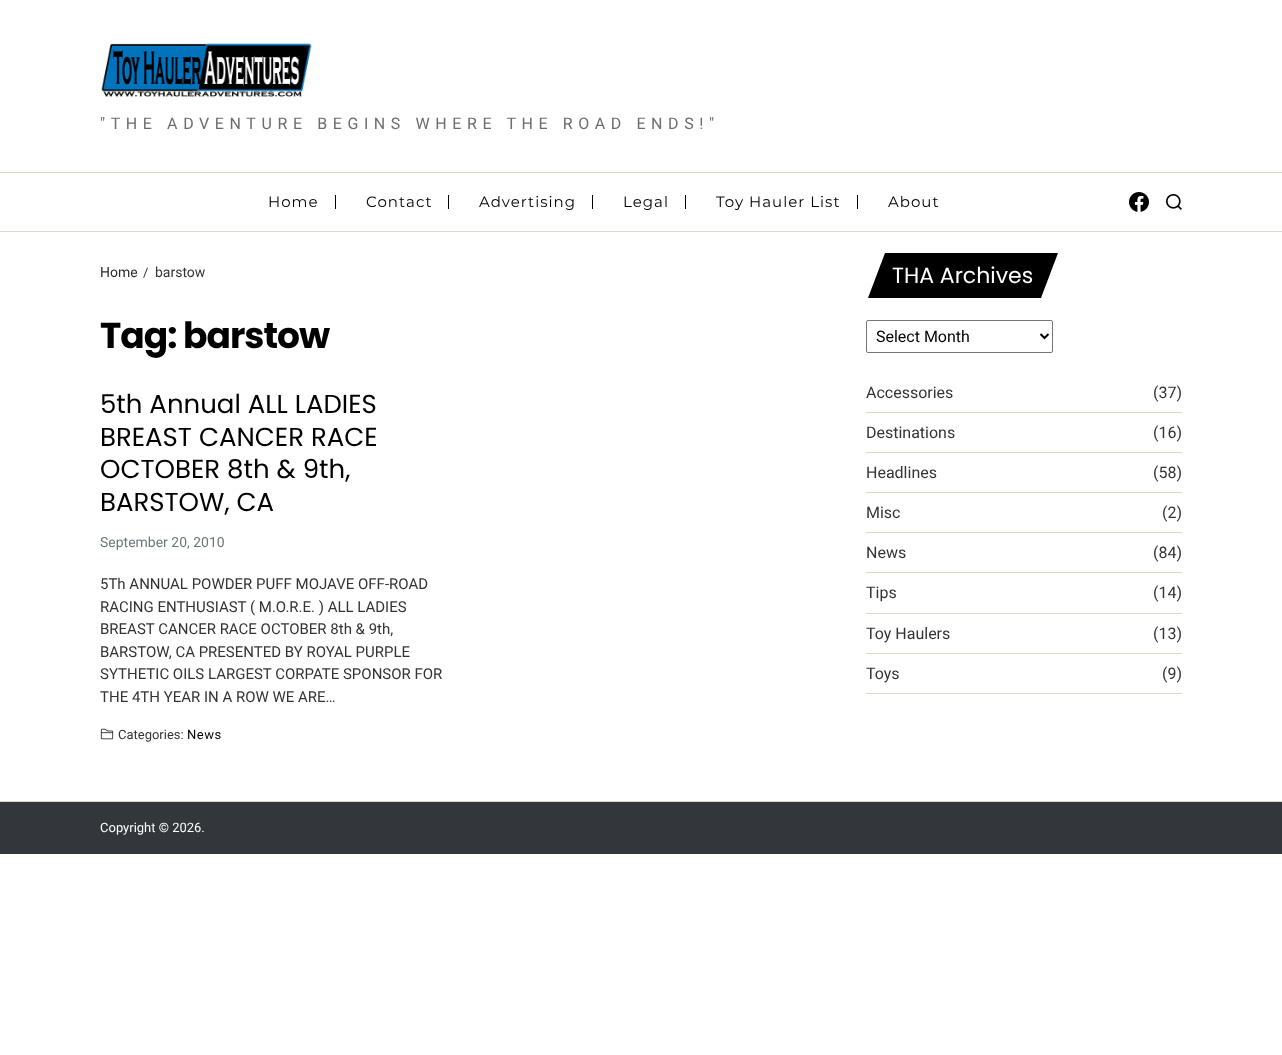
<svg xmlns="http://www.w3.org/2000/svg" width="1282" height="1055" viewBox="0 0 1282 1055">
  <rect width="100%" height="100%" fill="#fff"/>
  <image x="101" y="43" width="211" height="54" href="img/1.png"/>
  <path d="M0 172h1282v1H0z" fill="#dcd7ca"/>
  <path d="M0 231h1282v1H0z" fill="#dcd7ca"/>
  <path d="M335 195h1v14H335z" fill="#000"/>
  <path d="M448 195h1v14H448z" fill="#000"/>
  <path d="M592 195h1v14H592z" fill="#000"/>
  <path d="M685 195h1v14H685z" fill="#000"/>
  <path d="M857 195h1v14H857z" fill="#000"/>
  <image x="1129" y="192" width="20" height="20" href="img/2.png"/>
  <image x="1166" y="194" width="16" height="16" href="img/3.png"/>
  <image x="100" y="728" width="14" height="12" href="img/4.png"/>
  <path d="M885 253H1058L1041 298H868Z" fill="#000"/>
  <rect x="866.5" y="320.5" width="186" height="32" rx="1.5" fill="none" stroke="#767676"/>
  <path d="M1040.5 334L1044.5 338L1048.5 334" fill="none" stroke="#000" stroke-width="2"/>
  <path d="M866 412h316v1H866z" fill="#dcd7ca"/>
  <path d="M866 452h316v1H866z" fill="#dcd7ca"/>
  <path d="M866 492h316v1H866z" fill="#dcd7ca"/>
  <path d="M866 532h316v1H866z" fill="#dcd7ca"/>
  <path d="M866 572h316v1H866z" fill="#dcd7ca"/>
  <path d="M866 613h316v1H866z" fill="#dcd7ca"/>
  <path d="M866 653h316v1H866z" fill="#dcd7ca"/>
  <path d="M866 693h316v1H866z" fill="#dcd7ca"/>
  <path d="M0 802h1282v52H0z" fill="#33363b"/>
  <path d="M0 801h1282v1H0z" fill="#dcd7ca"/>
  <text x="100" y="129" font-family="Roboto" font-size="16" letter-spacing="5.6" fill="#6d6d6d">"THE ADVENTURE BEGINS WHERE THE ROAD ENDS!"</text>
  <g font-family="Montserrat" font-size="15" letter-spacing="1" fill="#000">
    <text x="268" y="207">Home</text>
    <text x="366" y="207">Contact</text>
    <text x="479" y="207">Advertising</text>
    <text x="623" y="207">Legal</text>
    <text x="716" y="207">Toy Hauler List</text>
    <text x="888" y="207">About</text>
  </g>
  <text x="100" y="277" font-family="Roboto" font-size="14" fill="#2a2c29">Home</text>
  <text x="143" y="277" font-family="Roboto" font-size="13" fill="#333">/</text>
  <text x="155" y="277" font-family="Roboto" font-size="14" fill="#333">barstow</text>
  <text x="100" y="348" font-family="Poppins" font-size="36" font-weight="bold" letter-spacing="-1" fill="#000">Tag: barstow</text>
  <g font-family="Poppins" font-size="26" fill="#000">
    <text x="100" y="413">5th Annual ALL LADIES</text>
    <text x="100" y="446">BREAST CANCER RACE</text>
    <text x="100" y="478">OCTOBER 8th &amp; 9th,</text>
    <text x="100" y="511">BARSTOW, CA</text>
  </g>
  <text x="100" y="547" font-family="Roboto" font-size="14" fill="#6c757d">September 20, 2010</text>
  <g font-family="Roboto" font-size="15" fill="#333">
    <text x="100" y="589">5Th ANNUAL POWDER PUFF MOJAVE OFF-ROAD</text>
    <text x="100" y="612">RACING ENTHUSIAST ( M.O.R.E. ) ALL LADIES</text>
    <text x="100" y="634">BREAST CANCER RACE OCTOBER 8th &amp; 9th,</text>
    <text x="100" y="657">BARSTOW, CA PRESENTED BY ROYAL PURPLE</text>
    <text x="100" y="679">SYTHETIC OILS LARGEST CORPATE SPONSOR FOR</text>
    <text x="100" y="702">THE 4TH YEAR IN A ROW WE ARE…</text>
  </g>
  <text x="118" y="739" font-family="Roboto" font-size="13" fill="#333">Categories:</text>
  <text x="187" y="739" font-family="Roboto" font-size="13" letter-spacing="0.5" fill="#000">News</text>
  <text x="892" y="283" font-family="Poppins" font-size="22" fill="#fff">THA Archives</text>
  <text x="876" y="342" font-family="Roboto" font-size="16" fill="#000">Select Month</text>
  <g font-family="Roboto" font-size="16" fill="#333">
    <text x="866" y="398">Accessories</text>
    <text x="1153" y="398">(37)</text>
    <text x="866" y="438">Destinations</text>
    <text x="1153" y="438">(16)</text>
    <text x="866" y="478">Headlines</text>
    <text x="1153" y="478">(58)</text>
    <text x="866" y="518">Misc</text>
    <text x="1162" y="518">(2)</text>
    <text x="866" y="558">News</text>
    <text x="1153" y="558">(84)</text>
    <text x="866" y="598">Tips</text>
    <text x="1153" y="598">(14)</text>
    <text x="866" y="639">Toy Haulers</text>
    <text x="1153" y="639">(13)</text>
    <text x="866" y="679">Toys</text>
    <text x="1162" y="679">(9)</text>
  </g>
  <text x="100" y="832" font-family="Roboto" font-size="13" fill="#fff">Copyright © 2026.</text>
</svg>
